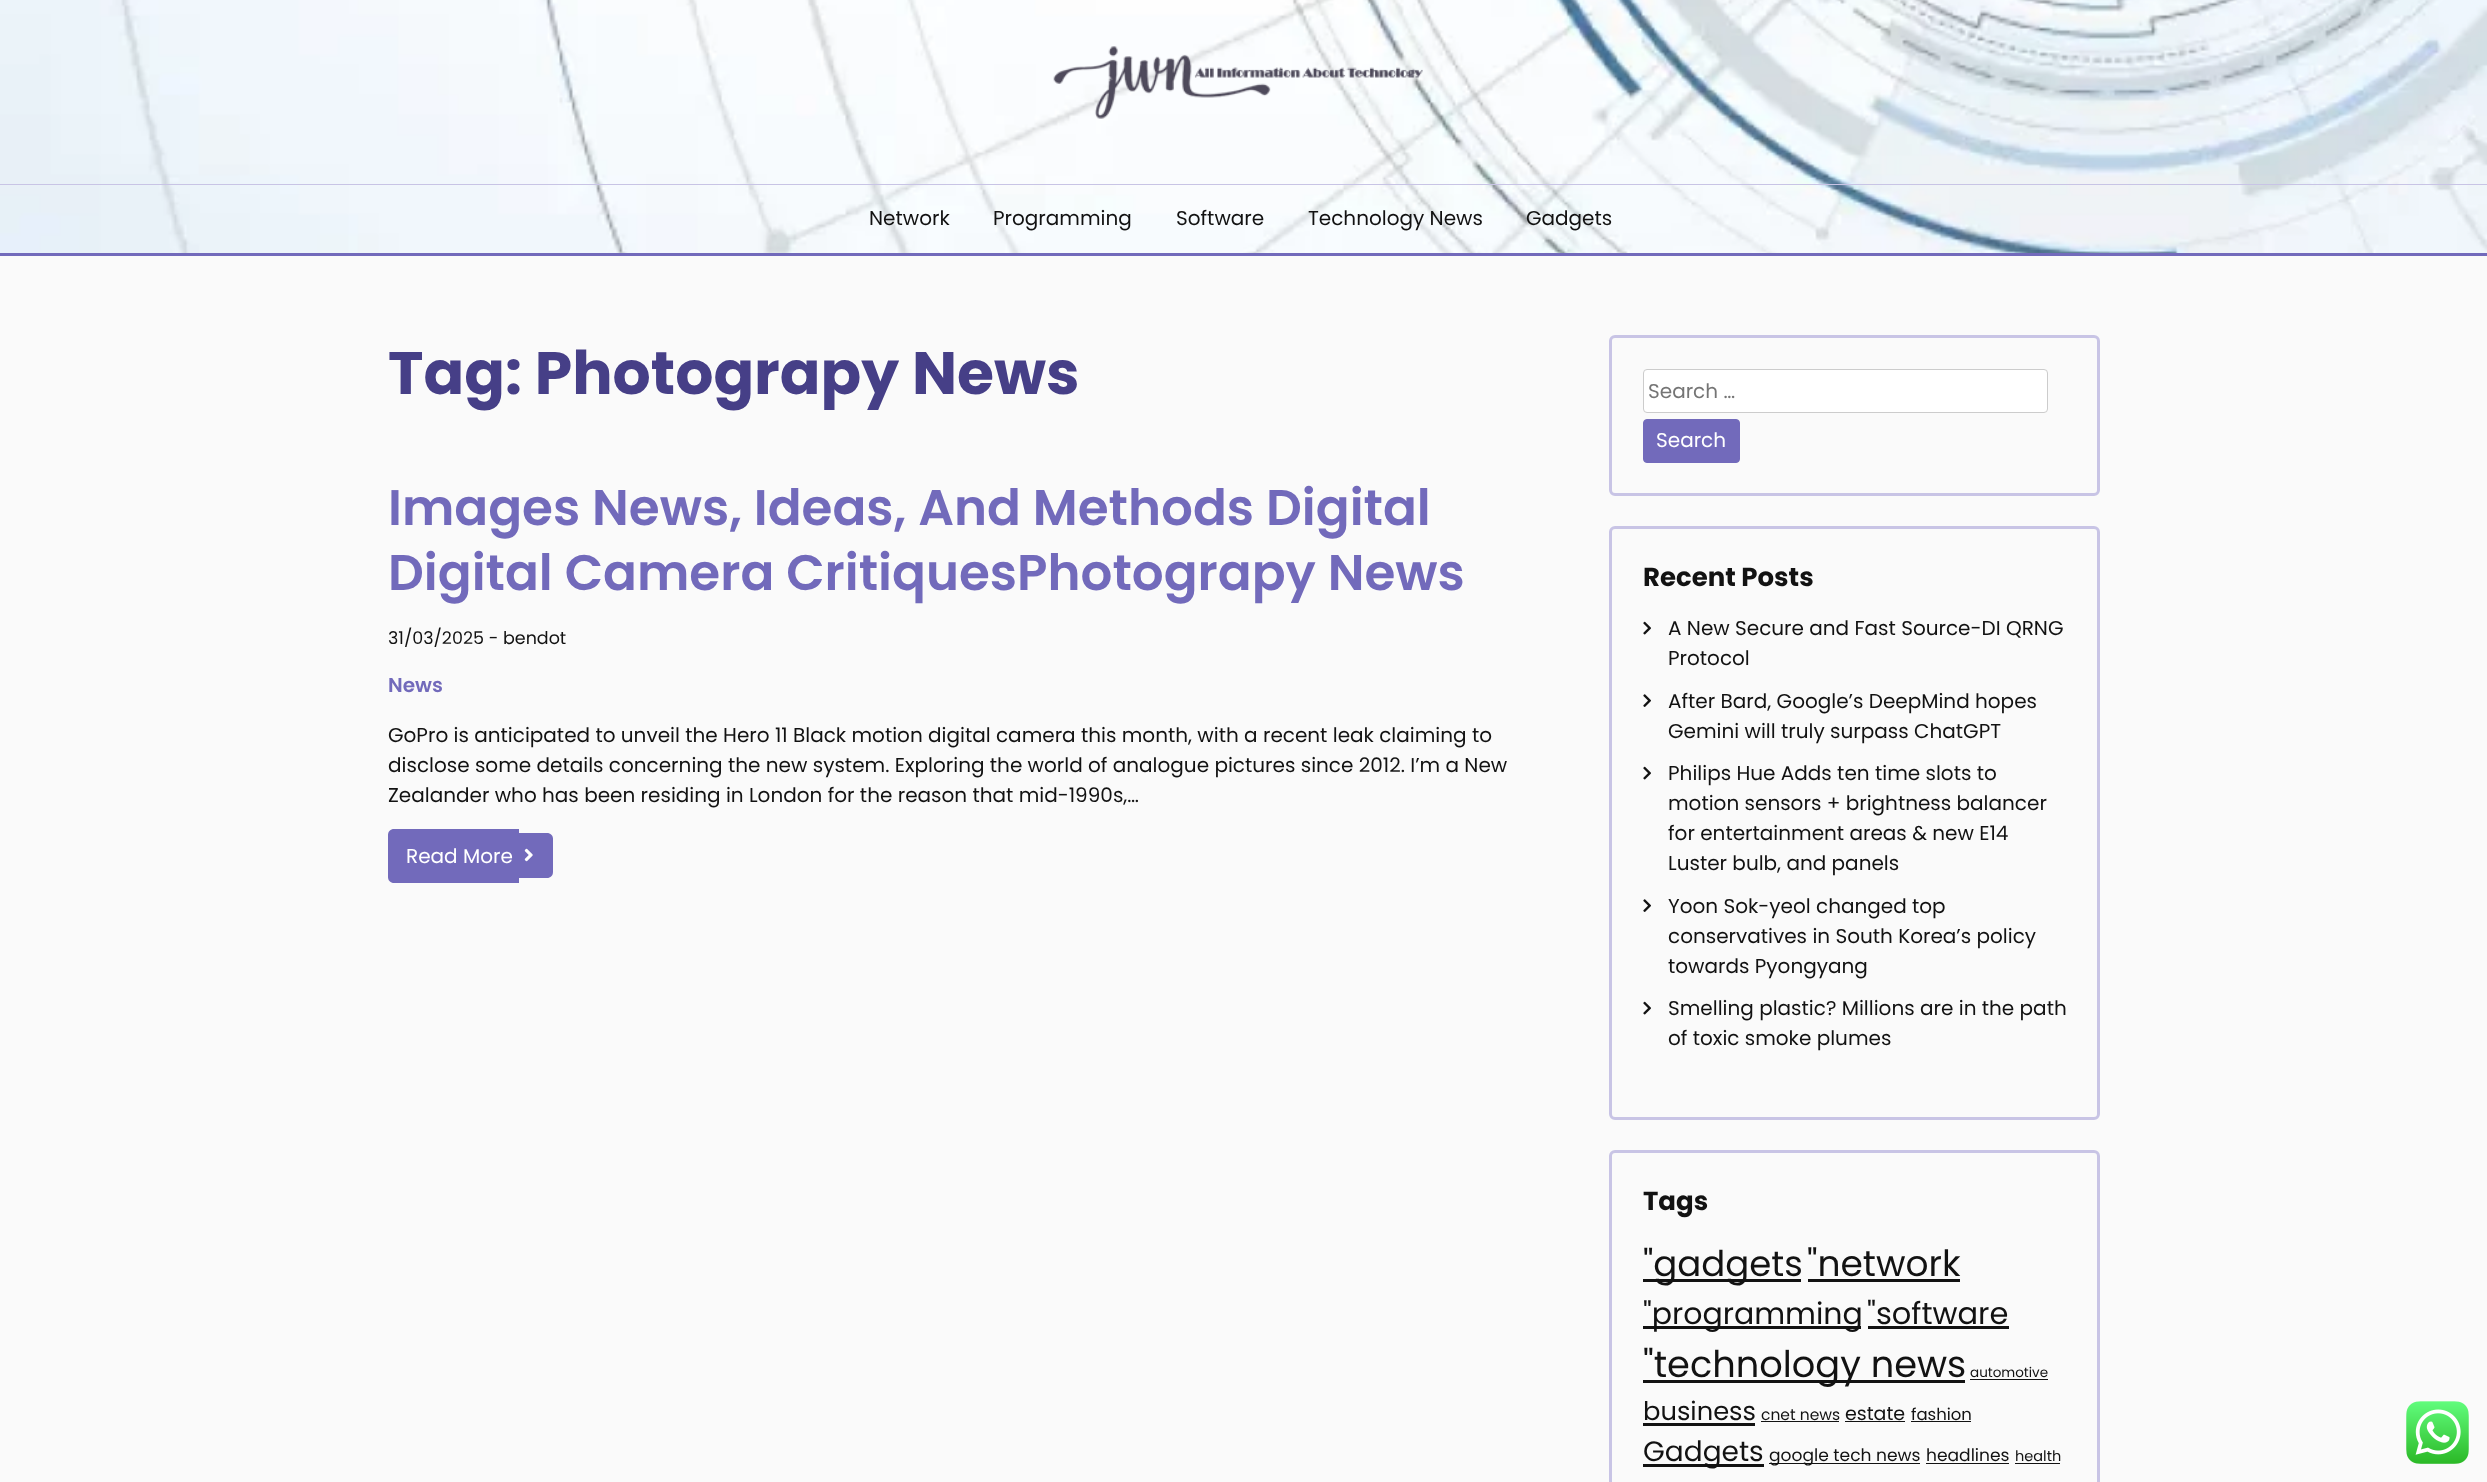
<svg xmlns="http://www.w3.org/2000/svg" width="2487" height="1482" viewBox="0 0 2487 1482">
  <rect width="100%" height="100%" fill="#fafafa"/>
  <image x="0" y="0" width="2487" height="253" href="img/1.png"/>
  <image x="1053" y="46" width="370" height="73" href="img/2.png"/>
  <path d="M0 184h2487v1H0z" fill="#c8c4e5"/>
  <path d="M0 253h2487v3H0z" fill="#726abb"/>
  <path d="M394 829H519V883H394C390.5 883 388 880.5 388 877V835C388 831.5 390.5 829 394 829Z" fill="#726abb"/>
  <path d="M519 833H547C550.5 833 553 835.5 553 839V872C553 875.5 550.5 878 547 878H519Z" fill="#726abb"/>
  <image x="524" y="848" width="9" height="14" href="img/3.png"/>
  <rect x="1610.5" y="336.5" width="488" height="158" rx="4.5" fill="none" stroke="#c8c4e5" stroke-width="3"/>
  <rect x="1643.5" y="369.5" width="404" height="43" rx="3.5" fill="#fff" stroke="#ccc"/>
  <rect x="1643.5" y="419.5" width="96" height="43" rx="3.5" fill="#726abb" stroke="#726abb"/>
  <rect x="1610.5" y="527.5" width="488" height="591" rx="4.5" fill="none" stroke="#c8c4e5" stroke-width="3"/>
  <image x="1643" y="621" width="8" height="14" href="img/4.png"/>
  <image x="1643" y="694" width="8" height="13" href="img/5.png"/>
  <image x="1643" y="766" width="8" height="14" href="img/4.png"/>
  <image x="1643" y="899" width="8" height="13" href="img/5.png"/>
  <image x="1643" y="1001" width="8" height="14" href="img/4.png"/>
  <rect x="1610.5" y="1151.5" width="488" height="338" rx="4.5" fill="none" stroke="#c8c4e5" stroke-width="3"/>
  <path d="M1643 1279h158v3H1643z" fill="#121212"/>
  <path d="M1808 1279h152v3H1808z" fill="#121212"/>
  <path d="M1643 1326h218v3H1643z" fill="#121212"/>
  <path d="M1868 1326h141v3H1868z" fill="#121212"/>
  <path d="M1643 1380h322v3H1643z" fill="#121212"/>
  <path d="M1970 1379h78v1H1970z" fill="#121212"/>
  <path d="M1643 1423h112v3H1643z" fill="#121212"/>
  <path d="M1761 1421h78v1H1761z" fill="#121212"/>
  <path d="M1845 1421h60v1H1845z" fill="#121212"/>
  <path d="M1911 1421h60v1H1911z" fill="#121212"/>
  <path d="M1643 1464h121v3H1643z" fill="#121212"/>
  <path d="M1769 1463h151v1H1769z" fill="#121212"/>
  <path d="M1926 1463h83v1H1926z" fill="#121212"/>
  <path d="M2015 1463h45v1H2015z" fill="#121212"/>
  <image x="2406" y="1401" width="63" height="63" href="img/6.png"/>
  <g font-family="Poppins" font-size="20" fill="#121212">
    <text x="869" y="225">Network</text>
    <text x="993" y="225">Programming</text>
    <text x="1176" y="225">Software</text>
    <text x="1308" y="225">Technology News</text>
    <text x="1526" y="225">Gadgets</text>
  </g>
  <text x="388" y="394" font-family="Poppins" font-size="60" font-weight="bold" fill="#463f87">Tag: Photograpy News</text>
  <g font-family="Poppins" font-size="50" font-weight="600" fill="#726abb">
    <text x="388" y="525">Images News, Ideas, And Methods Digital</text>
    <text x="388" y="590">Digital Camera CritiquesPhotograpy News</text>
  </g>
  <text x="388" y="644" font-family="Poppins" font-size="17.5" fill="#121212">31/03/2025 - bendot</text>
  <text x="388" y="692" font-family="Poppins" font-size="20" font-weight="600" fill="#726abb">News</text>
  <g font-family="Poppins" font-size="20" fill="#121212">
    <text x="388" y="742">GoPro is anticipated to unveil the Hero 11 Black motion digital camera this month, with a recent leak claiming to</text>
    <text x="388" y="772">disclose some details concerning the new system. Exploring the world of analogue pictures since 2012. I’m a New</text>
    <text x="388" y="802">Zealander who has been residing in London for the reason that mid-1990s,…</text>
  </g>
  <text x="406" y="863" font-family="Poppins" font-size="20" fill="#fff">Read More</text>
  <text x="1648" y="398" font-family="Poppins" font-size="20" fill="#757575">Search …</text>
  <text x="1656" y="447" font-family="Poppins" font-size="20" fill="#fff">Search</text>
  <text x="1643" y="586" font-family="Poppins" font-size="26" font-weight="bold" fill="#121212">Recent Posts</text>
  <g font-family="Poppins" font-size="20" fill="#121212">
    <text x="1668" y="635">A New Secure and Fast Source-DI QRNG</text>
    <text x="1668" y="665">Protocol</text>
    <text x="1668" y="708">After Bard, Google’s DeepMind hopes</text>
    <text x="1668" y="738">Gemini will truly surpass ChatGPT</text>
    <text x="1668" y="780">Philips Hue Adds ten time slots to</text>
    <text x="1668" y="810">motion sensors + brightness balancer</text>
    <text x="1668" y="840">for entertainment areas &amp; new E14</text>
    <text x="1668" y="870">Luster bulb, and panels</text>
    <text x="1668" y="913">Yoon Sok-yeol changed top</text>
    <text x="1668" y="943">conservatives in South Korea’s policy</text>
    <text x="1668" y="973">towards Pyongyang</text>
    <text x="1668" y="1015">Smelling plastic? Millions are in the path</text>
    <text x="1668" y="1045">of toxic smoke plumes</text>
  </g>
  <text x="1643" y="1210" font-family="Poppins" font-size="26" font-weight="bold" fill="#121212">Tags</text>
  <text x="1643" y="1276" font-family="Poppins" font-size="35.5" fill="#121212">"gadgets</text>
  <text x="1807" y="1276" font-family="Poppins" font-size="36" fill="#121212">"network</text>
  <text x="1643" y="1324" font-family="Poppins" font-size="30" fill="#121212">"programming</text>
  <text x="1867" y="1324" font-family="Poppins" font-size="30.5" fill="#121212">"software</text>
  <text x="1643" y="1377" font-family="Poppins" font-size="36.75" fill="#121212">"technology news</text>
  <text x="1970" y="1377" font-family="Poppins" font-size="13.5" fill="#121212">automotive</text>
  <text x="1643" y="1420" font-family="Poppins" font-size="25.75" fill="#121212">business</text>
  <text x="1761" y="1420" font-family="Poppins" font-size="15.5" fill="#121212">cnet news</text>
  <text x="1845" y="1420" font-family="Poppins" font-size="19" fill="#121212">estate</text>
  <text x="1911" y="1420" font-family="Poppins" font-size="16.5" fill="#121212">fashion</text>
  <text x="1643" y="1461" font-family="Poppins" font-size="28" fill="#121212">Gadgets</text>
  <g font-family="Poppins" font-size="17.1" fill="#121212">
    <text x="1769" y="1461">google tech news</text>
    <text x="1926" y="1461">headlines</text>
  </g>
  <text x="2015" y="1461" font-family="Poppins" font-size="14.5" fill="#121212">health</text>
</svg>
